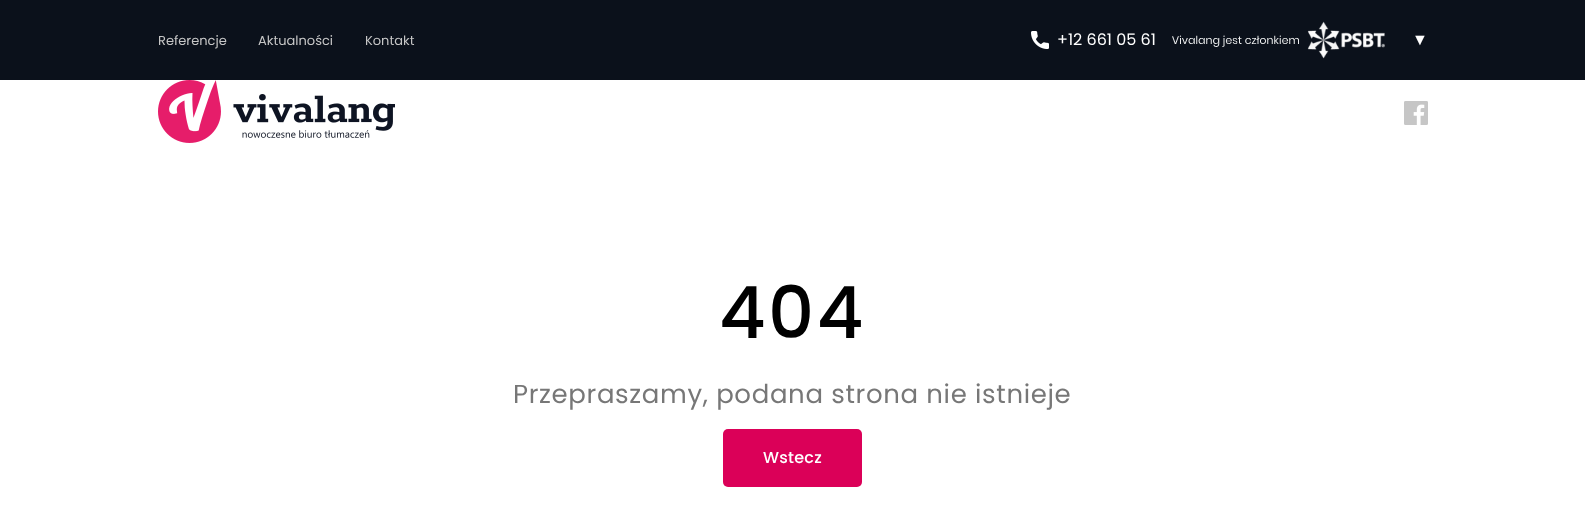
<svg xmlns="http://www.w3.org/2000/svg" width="1585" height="519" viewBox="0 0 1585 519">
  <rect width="100%" height="100%" fill="#fff"/>
  <path d="M0 0h1585v80H0z" fill="#0b111b"/>
  <image x="1031" y="31" width="18" height="18" href="img/1.png"/>
  <image x="1172" y="21" width="213" height="38" href="img/2.png"/>
  <image x="158" y="80" width="237" height="63" href="img/3.png"/>
  <image x="1404" y="101" width="24" height="24" href="img/4.png"/>
  <rect x="723" y="429" width="139" height="58" rx="5" fill="#db0058"/>
  <g font-family="Poppins" font-size="13" fill="#c6c6c6">
    <text x="158" y="45">Referencje</text>
    <text x="258" y="45">Aktualności</text>
    <text x="365" y="45">Kontakt</text>
  </g>
  <text x="1057" y="45" font-family="Poppins" font-size="16" fill="#fff">+12 661 05 61</text>
  <text x="1412" y="45" font-family="Liberation Sans" font-size="16" fill="#fff">▼</text>
  <text x="719" y="338" font-family="Poppins" font-size="72" font-weight="500" letter-spacing="2.5" fill="#000">404</text>
  <text x="513" y="403" font-family="Poppins" font-size="26" letter-spacing="0.65" fill="#777">Przepraszamy, podana strona nie istnieje</text>
  <text x="763" y="463" font-family="Poppins" font-size="16" font-weight="500" letter-spacing="0.25" fill="#fff">Wstecz</text>
</svg>
